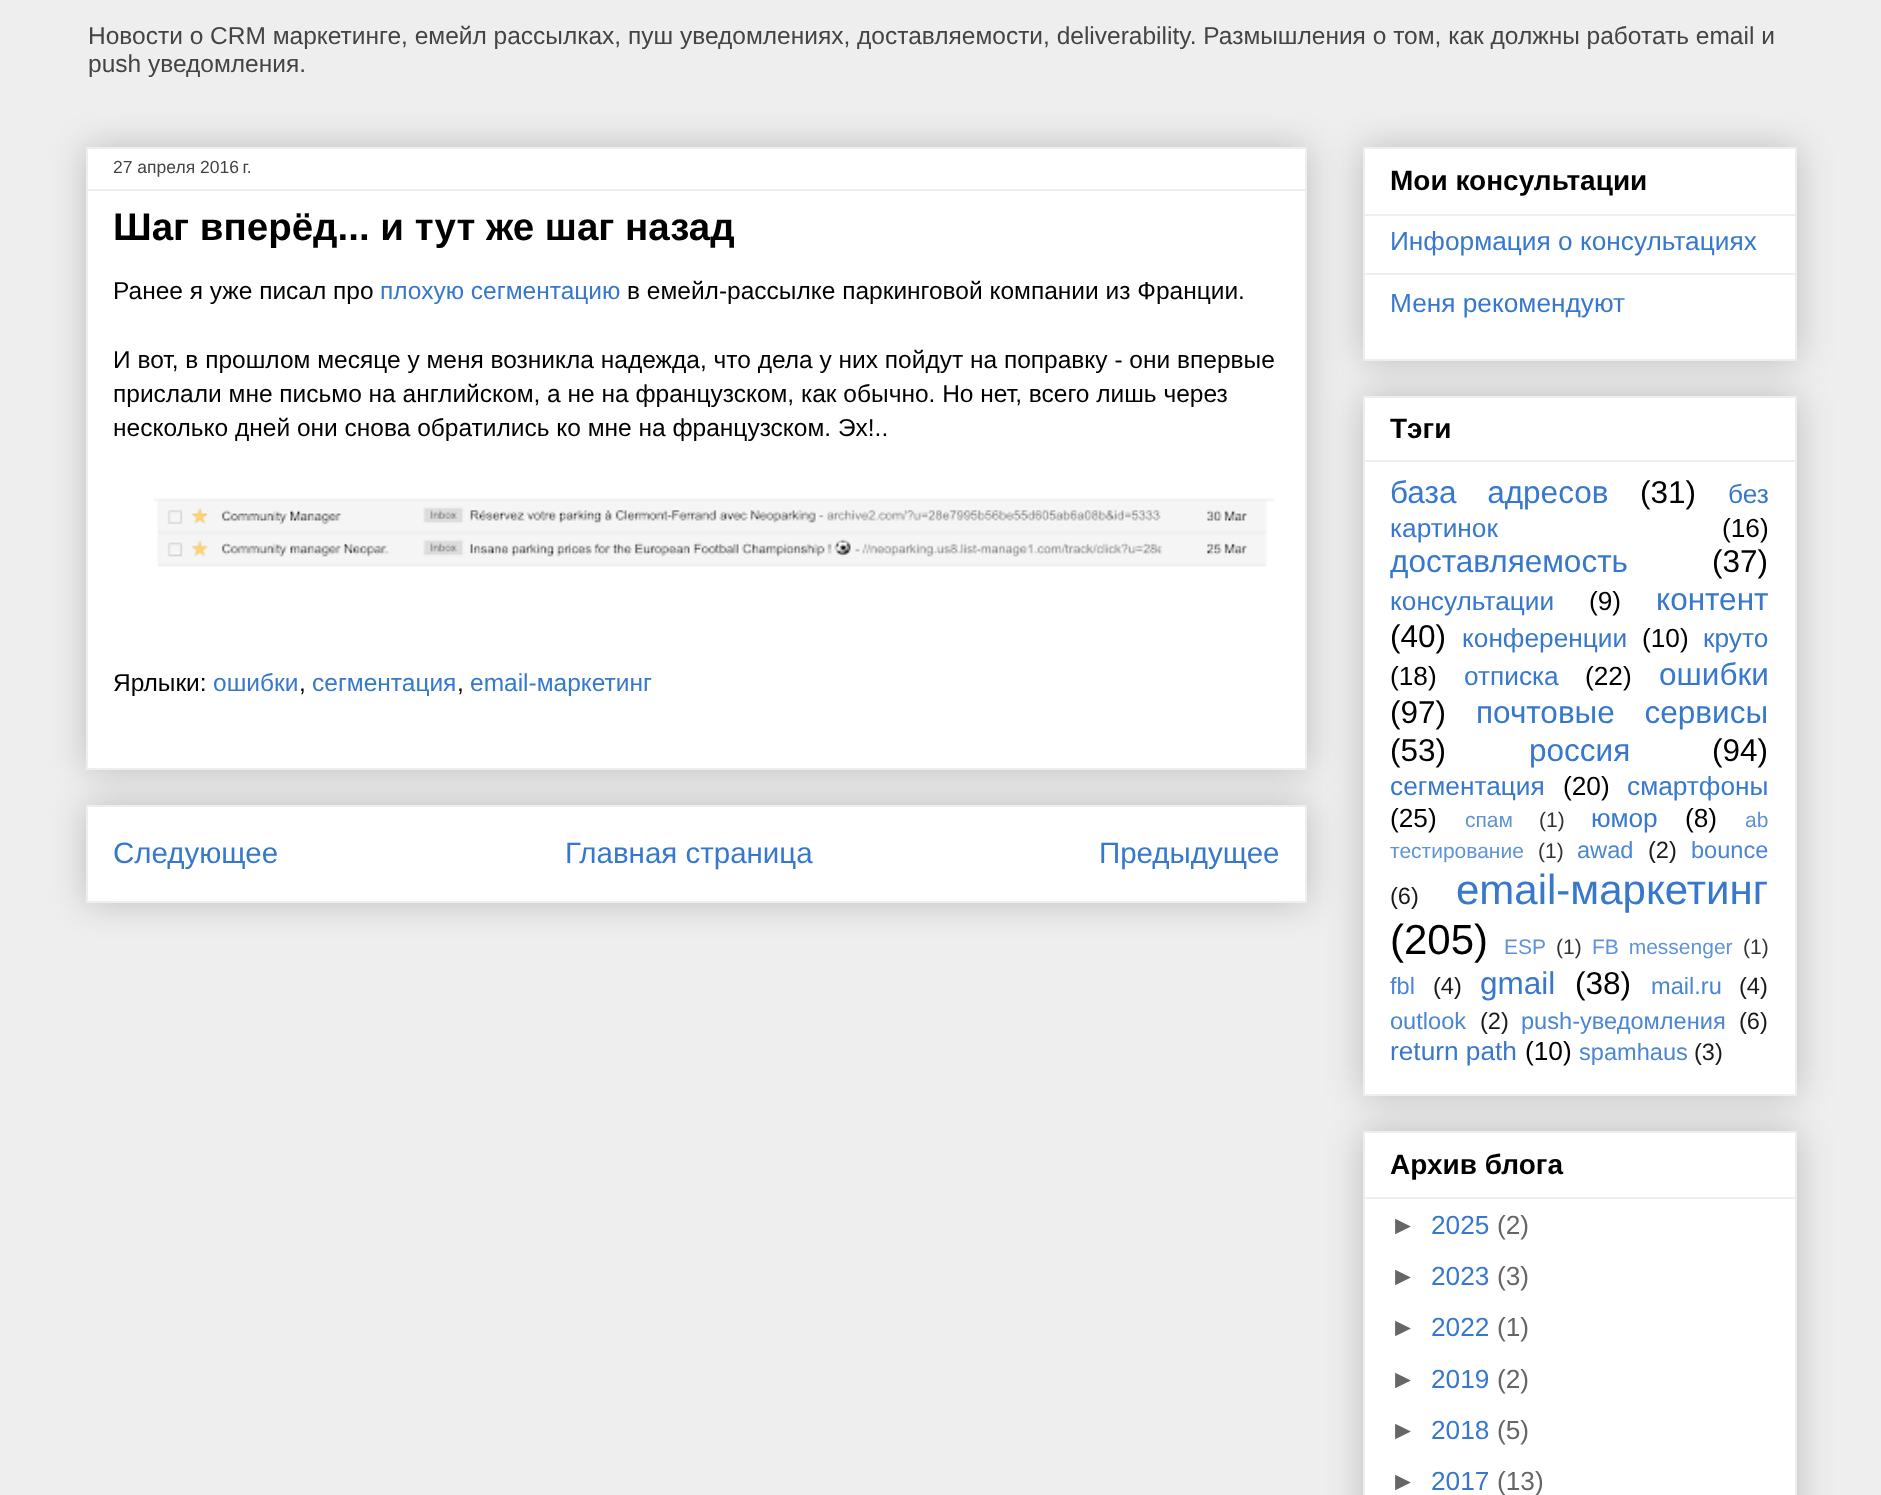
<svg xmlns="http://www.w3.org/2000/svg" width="1881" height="1495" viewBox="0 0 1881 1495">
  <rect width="100%" height="100%" fill="#eee"/>
  <path d="M86 805h1221v98H86z" fill="#00000033" filter="blur(17.5px)"/>
  <path d="M87 806h1219v96H87z" fill="#fff" stroke="#eee" stroke-width="2"/>
  <path d="M86 147h1221v623H86z" fill="#00000033" filter="blur(17.5px)"/>
  <path d="M87 148h1219v621H87z" fill="#fff" stroke="#eee" stroke-width="2"/>
  <path d="M88 189h1218v2H88z" fill="#eee"/>
  <image x="154" y="498" width="1120" height="69" href="img/1.png"/>
  <path d="M1363 147h434v214H1363z" fill="#00000033" filter="blur(17.5px)"/>
  <path d="M1364 148h432v212H1364z" fill="#fff" stroke="#eee" stroke-width="2"/>
  <path d="M1365 214h431v2H1365z" fill="#eee"/>
  <path d="M1365 273h431v2H1365z" fill="#eee"/>
  <path d="M1363 396h434v700H1363z" fill="#00000033" filter="blur(17.5px)"/>
  <path d="M1364 397h432v698H1364z" fill="#fff" stroke="#eee" stroke-width="2"/>
  <path d="M1365 460h431v2H1365z" fill="#eee"/>
  <path d="M1363 1131h434v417H1363z" fill="#00000033" filter="blur(17.5px)"/>
  <path d="M1364 1132h432v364H1364z" fill="#fff" stroke="#eee" stroke-width="2"/>
  <path d="M1365 1197h431v2H1365z" fill="#eee"/>
  <g font-family="Liberation Sans" font-size="24.5" fill="#444">
    <text x="88" y="44">Новости о CRM маркетинге, емейл рассылках, пуш уведомлениях, доставляемости, deliverability. Размышления о том, как должны работать email и</text>
    <text x="88" y="72">push уведомления.</text>
  </g>
  <text x="113" y="173" font-family="Liberation Sans" font-size="17.5" fill="#444">27 апреля 2016 г.</text>
  <text x="113" y="240" font-family="Liberation Sans" font-size="38.5" font-weight="bold" fill="#000">Шаг вперёд... и тут же шаг назад</text>
  <text x="113" y="299" font-family="Liberation Sans" font-size="24.5" fill="#000">Ранее я уже писал про</text>
  <text x="380" y="299" font-family="Liberation Sans" font-size="24.5" fill="#3778cd">плохую сегментацию</text>
  <g font-family="Liberation Sans" font-size="24.5" fill="#000">
    <text x="627" y="299">в емейл-рассылке паркинговой компании из Франции.</text>
    <text x="113" y="368">И вот, в прошлом месяце у меня возникла надежда, что дела у них пойдут на поправку - они впервые</text>
    <text x="113" y="402">прислали мне письмо на английском, а не на французском, как обычно. Но нет, всего лишь через</text>
    <text x="113" y="436">несколько дней они снова обратились ко мне на французском. Эх!..</text>
    <text x="113" y="691">Ярлыки:</text>
  </g>
  <text x="213" y="691" font-family="Liberation Sans" font-size="24.5" fill="#3778cd">ошибки</text>
  <text x="299" y="691" font-family="Liberation Sans" font-size="24.5" fill="#000">,</text>
  <text x="312" y="691" font-family="Liberation Sans" font-size="24.5" fill="#3778cd">сегментация</text>
  <text x="457" y="691" font-family="Liberation Sans" font-size="24.5" fill="#000">,</text>
  <text x="470" y="691" font-family="Liberation Sans" font-size="24.5" fill="#3778cd">email-маркетинг</text>
  <g font-family="Liberation Sans" font-size="29.5" fill="#3778cd">
    <text x="113" y="863">Следующее</text>
    <text x="565" y="863">Главная страница</text>
    <text x="1099" y="863">Предыдущее</text>
  </g>
  <text x="1390" y="190" font-family="Liberation Sans" font-size="28" font-weight="bold" fill="#000">Мои консультации</text>
  <g font-family="Liberation Sans" font-size="26.25" fill="#3778cd">
    <text x="1390" y="250">Информация о консультациях</text>
    <text x="1390" y="312">Меня рекомендуют</text>
  </g>
  <text x="1390" y="438" font-family="Liberation Sans" font-size="28" font-weight="bold" fill="#000">Тэги</text>
  <text x="1390" y="503" word-spacing="22" font-family="Liberation Sans" font-size="31.5" fill="#3778cd">база адресов</text>
  <text x="1640" y="503" font-family="Liberation Sans" font-size="31.5" fill="#000">(31)</text>
  <g font-family="Liberation Sans" font-size="26.25" fill="#3778cd">
    <text x="1728" y="503">без</text>
    <text x="1390" y="537">картинок</text>
  </g>
  <text x="1722" y="537" font-family="Liberation Sans" font-size="26.25" fill="#000">(16)</text>
  <text x="1390" y="572" font-family="Liberation Sans" font-size="31.5" fill="#3778cd">доставляемость</text>
  <text x="1712" y="572" font-family="Liberation Sans" font-size="31.5" fill="#000">(37)</text>
  <text x="1390" y="610" font-family="Liberation Sans" font-size="26.25" fill="#3778cd">консультации</text>
  <text x="1589" y="610" font-family="Liberation Sans" font-size="26.25" fill="#000">(9)</text>
  <text x="1656" y="610" font-family="Liberation Sans" font-size="31.5" fill="#3778cd">контент</text>
  <text x="1390" y="647" font-family="Liberation Sans" font-size="31.5" fill="#000">(40)</text>
  <text x="1462" y="647" font-family="Liberation Sans" font-size="26.25" fill="#3778cd">конференции</text>
  <text x="1642" y="647" font-family="Liberation Sans" font-size="26.25" fill="#000">(10)</text>
  <text x="1703" y="647" font-family="Liberation Sans" font-size="26.25" fill="#3778cd">круто</text>
  <text x="1390" y="685" font-family="Liberation Sans" font-size="26.25" fill="#000">(18)</text>
  <text x="1464" y="685" font-family="Liberation Sans" font-size="26.25" fill="#3778cd">отписка</text>
  <text x="1585" y="685" font-family="Liberation Sans" font-size="26.25" fill="#000">(22)</text>
  <text x="1659" y="685" font-family="Liberation Sans" font-size="31.5" fill="#3778cd">ошибки</text>
  <text x="1390" y="723" font-family="Liberation Sans" font-size="31.5" fill="#000">(97)</text>
  <text x="1476" y="723" word-spacing="21" font-family="Liberation Sans" font-size="31.5" fill="#3778cd">почтовые сервисы</text>
  <text x="1390" y="761" font-family="Liberation Sans" font-size="31.5" fill="#000">(53)</text>
  <text x="1529" y="761" font-family="Liberation Sans" font-size="31.5" fill="#3778cd">россия</text>
  <text x="1712" y="761" font-family="Liberation Sans" font-size="31.5" fill="#000">(94)</text>
  <text x="1390" y="795" font-family="Liberation Sans" font-size="26.25" fill="#3778cd">сегментация</text>
  <text x="1563" y="795" font-family="Liberation Sans" font-size="26.25" fill="#000">(20)</text>
  <text x="1627" y="795" font-family="Liberation Sans" font-size="26.25" fill="#3778cd">смартфоны</text>
  <text x="1390" y="827" font-family="Liberation Sans" font-size="26.25" fill="#000">(25)</text>
  <text x="1465" y="827" font-family="Liberation Sans" font-size="21" fill="#5f93d7">спам</text>
  <text x="1539" y="827" font-family="Liberation Sans" font-size="21" fill="#333">(1)</text>
  <text x="1591" y="827" font-family="Liberation Sans" font-size="26.25" fill="#3778cd">юмор</text>
  <text x="1685" y="827" font-family="Liberation Sans" font-size="26.25" fill="#000">(8)</text>
  <g font-family="Liberation Sans" font-size="21" fill="#5f93d7">
    <text x="1745" y="827">ab</text>
    <text x="1390" y="858">тестирование</text>
  </g>
  <text x="1538" y="858" font-family="Liberation Sans" font-size="21" fill="#333">(1)</text>
  <text x="1577" y="858" font-family="Liberation Sans" font-size="23.6" fill="#4b86d2">awad</text>
  <text x="1648" y="858" font-family="Liberation Sans" font-size="23.6" fill="#1a1a1a">(2)</text>
  <text x="1691" y="858" font-family="Liberation Sans" font-size="23.6" fill="#4b86d2">bounce</text>
  <text x="1390" y="904" font-family="Liberation Sans" font-size="23.6" fill="#1a1a1a">(6)</text>
  <text x="1456" y="904" font-family="Liberation Sans" font-size="42" fill="#3778cd">email-маркетинг</text>
  <text x="1390" y="954" font-family="Liberation Sans" font-size="42" fill="#000">(205)</text>
  <text x="1504" y="954" font-family="Liberation Sans" font-size="21" fill="#5f93d7">ESP</text>
  <text x="1556" y="954" font-family="Liberation Sans" font-size="21" fill="#333">(1)</text>
  <text x="1592" y="954" word-spacing="4" font-family="Liberation Sans" font-size="21" fill="#5f93d7">FB messenger</text>
  <text x="1743" y="954" font-family="Liberation Sans" font-size="21" fill="#333">(1)</text>
  <text x="1390" y="994" font-family="Liberation Sans" font-size="23.6" fill="#4b86d2">fbl</text>
  <text x="1433" y="994" font-family="Liberation Sans" font-size="23.6" fill="#1a1a1a">(4)</text>
  <text x="1480" y="994" font-family="Liberation Sans" font-size="31.5" fill="#3778cd">gmail</text>
  <text x="1575" y="994" font-family="Liberation Sans" font-size="31.5" fill="#000">(38)</text>
  <text x="1651" y="994" font-family="Liberation Sans" font-size="23.6" fill="#4b86d2">mail.ru</text>
  <text x="1739" y="994" font-family="Liberation Sans" font-size="23.6" fill="#1a1a1a">(4)</text>
  <text x="1390" y="1029" font-family="Liberation Sans" font-size="23.6" fill="#4b86d2">outlook</text>
  <text x="1480" y="1029" font-family="Liberation Sans" font-size="23.6" fill="#1a1a1a">(2)</text>
  <text x="1521" y="1029" font-family="Liberation Sans" font-size="23.6" fill="#4b86d2">push-уведомления</text>
  <text x="1739" y="1029" font-family="Liberation Sans" font-size="23.6" fill="#1a1a1a">(6)</text>
  <text x="1390" y="1060" font-family="Liberation Sans" font-size="26.25" fill="#3778cd">return path</text>
  <text x="1525" y="1060" font-family="Liberation Sans" font-size="26.25" fill="#000">(10)</text>
  <text x="1579" y="1060" font-family="Liberation Sans" font-size="23.6" fill="#4b86d2">spamhaus</text>
  <text x="1694" y="1060" font-family="Liberation Sans" font-size="23.6" fill="#1a1a1a">(3)</text>
  <text x="1390" y="1174" font-family="Liberation Sans" font-size="28" font-weight="bold" fill="#000">Архив блога</text>
  <text x="1390" y="1234" font-family="Liberation Sans" font-size="26.25" fill="#666">►</text>
  <text x="1431" y="1234" font-family="Liberation Sans" font-size="26.25" fill="#3778cd">2025</text>
  <g font-family="Liberation Sans" font-size="26.25" fill="#666">
    <text x="1497" y="1234">(2)</text>
    <text x="1390" y="1285">►</text>
  </g>
  <text x="1431" y="1285" font-family="Liberation Sans" font-size="26.25" fill="#3778cd">2023</text>
  <g font-family="Liberation Sans" font-size="26.25" fill="#666">
    <text x="1497" y="1285">(3)</text>
    <text x="1390" y="1336">►</text>
  </g>
  <text x="1431" y="1336" font-family="Liberation Sans" font-size="26.25" fill="#3778cd">2022</text>
  <g font-family="Liberation Sans" font-size="26.25" fill="#666">
    <text x="1497" y="1336">(1)</text>
    <text x="1390" y="1388">►</text>
  </g>
  <text x="1431" y="1388" font-family="Liberation Sans" font-size="26.25" fill="#3778cd">2019</text>
  <g font-family="Liberation Sans" font-size="26.25" fill="#666">
    <text x="1497" y="1388">(2)</text>
    <text x="1390" y="1439">►</text>
  </g>
  <text x="1431" y="1439" font-family="Liberation Sans" font-size="26.25" fill="#3778cd">2018</text>
  <g font-family="Liberation Sans" font-size="26.25" fill="#666">
    <text x="1497" y="1439">(5)</text>
    <text x="1390" y="1490">►</text>
  </g>
  <text x="1431" y="1490" font-family="Liberation Sans" font-size="26.25" fill="#3778cd">2017</text>
  <text x="1497" y="1490" font-family="Liberation Sans" font-size="26.25" fill="#666">(13)</text>
</svg>
